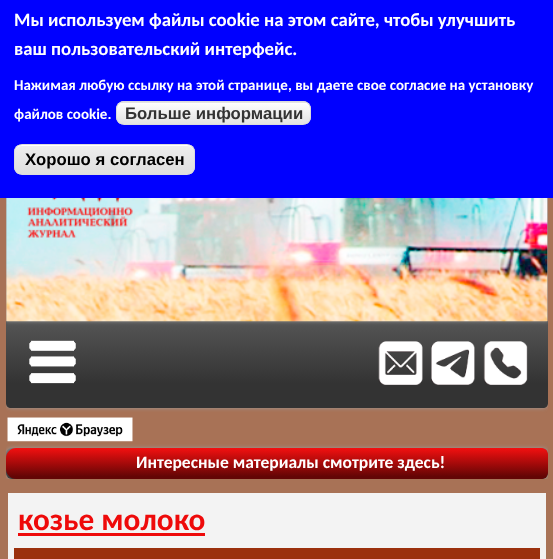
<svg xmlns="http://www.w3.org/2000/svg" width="553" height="559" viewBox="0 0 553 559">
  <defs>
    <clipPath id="clip1"><path d="M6 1h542v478H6z"/></clipPath>
    <linearGradient id="g1" gradientUnits="userSpaceOnUse" x1="277" y1="321" x2="277" y2="408"><stop offset="0" stop-color="#555"/><stop offset="0.72" stop-color="#333"/></linearGradient>
    <clipPath id="clip2"><rect x="116" y="101" width="195" height="24" rx="8"/></clipPath>
    <linearGradient id="g2" gradientUnits="userSpaceOnUse" x1="214" y1="81" x2="214" y2="103"><stop offset="0" stop-color="#fff"/><stop offset="1" stop-color="#e3e3e3"/></linearGradient>
    <linearGradient id="g3" gradientUnits="userSpaceOnUse" x1="214" y1="102" x2="214" y2="124"><stop offset="0" stop-color="#fff"/><stop offset="1" stop-color="#e3e3e3"/></linearGradient>
    <clipPath id="clip3"><rect x="14" y="144" width="181" height="31" rx="8"/></clipPath>
    <linearGradient id="g4" gradientUnits="userSpaceOnUse" x1="104" y1="145" x2="104" y2="174"><stop offset="0.05" stop-color="#ededed"/><stop offset="1" stop-color="#dfdfdf"/></linearGradient>
    <linearGradient id="g5" gradientUnits="userSpaceOnUse" x1="277" y1="448" x2="277" y2="482"><stop offset="0" stop-color="#7a7a7a"/><stop offset="1" stop-color="#333"/></linearGradient>
    <clipPath id="clip4"><rect x="6" y="448" width="542" height="31" rx="6"/></clipPath>
    <linearGradient id="g6" gradientUnits="userSpaceOnUse" x1="290" y1="448" x2="290" y2="479"><stop offset="0" stop-color="#f31010"/><stop offset="0.92" stop-color="#630505"/></linearGradient>
  </defs>
  <rect width="100%" height="100%" fill="#a87256"/>
  <g clip-path="url(#clip1)">
    <rect x="6" y="321" width="542" height="87" rx="5" fill="#999" filter="blur(2px)"/>
  </g>
  <path d="M6 321H548V403C548 406 546 408 543 408H11C8 408 6 406 6 403Z" fill="url(#g1)"/>
  <g clip-path="url(#clip1)">
    <path d="M6 41h542v280H6z" fill="#999" filter="blur(2px)"/>
  </g>
  <path d="M0 0h553v198H0z" fill="#00f"/>
  <g clip-path="url(#clip2)">
    <path d="M116 101h195v2H116z" fill="url(#g2)"/>
    <path d="M116 103h195v21H116z" fill="url(#g3)"/>
  </g>
  <path d="M124 104H304C307 104 310 107 310 110V109C310 106 307 103 304 103H124C121 103 118 106 118 109V110C118 107 120 104 124 104Z" fill="#fff"/>
  <rect x="116.5" y="101.5" width="194" height="23" rx="7.5" fill="none" stroke="#dbdbdb"/>
  <g clip-path="url(#clip3)">
    <path d="M14 145h181v29H14z" fill="url(#g4)"/>
  </g>
  <path d="M21 146H188C191 146 194 149 194 152V151C194 148 191 145 188 145H21C18 145 15 148 15 151V152C15 149 18 146 21 146Z" fill="#fff"/>
  <rect x="14.5" y="144.5" width="180" height="30" rx="7.5" fill="none" stroke="#dcdcdc"/>
  <image x="6" y="198" width="542" height="124" href="img/1.png"/>
  <image x="27" y="198" width="106" height="40" href="img/2.png"/>
  <image x="29" y="340" width="47" height="44" href="img/3.png"/>
  <image x="378" y="341" width="45" height="44" href="img/4.png"/>
  <image x="431" y="341" width="44" height="44" href="img/5.png"/>
  <image x="483" y="341" width="45" height="44" href="img/6.png"/>
  <image x="7" y="417" width="126" height="25" href="img/7.png"/>
  <g clip-path="url(#clip1)">
    <rect x="6" y="448" width="542" height="31" rx="6" fill="#999" filter="blur(2px)"/>
  </g>
  <rect x="6" y="448" width="542" height="31" rx="6" fill="url(#g5)"/>
  <g clip-path="url(#clip4)">
    <path d="M16 448H542C545.5 448 548 450.5 548 454V473C548 476.5 545.5 479 542 479H16C10.5 479 6 474.5 6 469V458C6 452.5 10.5 448 16 448Z" fill="url(#g6)"/>
  </g>
  <path d="M8 493h538v66H8z" fill="#f3f3f3"/>
  <path d="M18 533h187v3H18z" fill="#ee0a0a"/>
  <path d="M20.5 554.5h513v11H20.5z" fill="none" stroke="#9b300d" stroke-width="13"/>
  <g font-family="Carlito" font-size="18.75" font-weight="bold" fill="#fff">
    <text x="14" y="26">Мы используем файлы cookie на этом сайте, чтобы улучшить</text>
    <text x="14" y="55">ваш пользовательский интерфейс.</text>
  </g>
  <g font-family="Carlito" font-size="15" font-weight="bold" fill="#fff">
    <text x="14" y="90">Нажимая любую ссылку на этой странице, вы даете свое согласие на установку</text>
    <text x="14" y="119">файлов cookie.</text>
  </g>
  <text x="125" y="119" font-family="Liberation Sans" font-size="16.75" font-weight="bold" fill="#333">Больше информации</text>
  <text x="25" y="165" font-family="Liberation Sans" font-size="16.75" font-weight="bold" fill="#000">Хорошо я согласен</text>
  <text x="136" y="468" font-family="Carlito" font-size="17.5" font-weight="bold" fill="#fff">Интересные материалы смотрите здесь!</text>
  <text x="18" y="530" font-family="Carlito" font-size="31.25" font-weight="bold" fill="#ee0a0a">козье молоко</text>
</svg>
